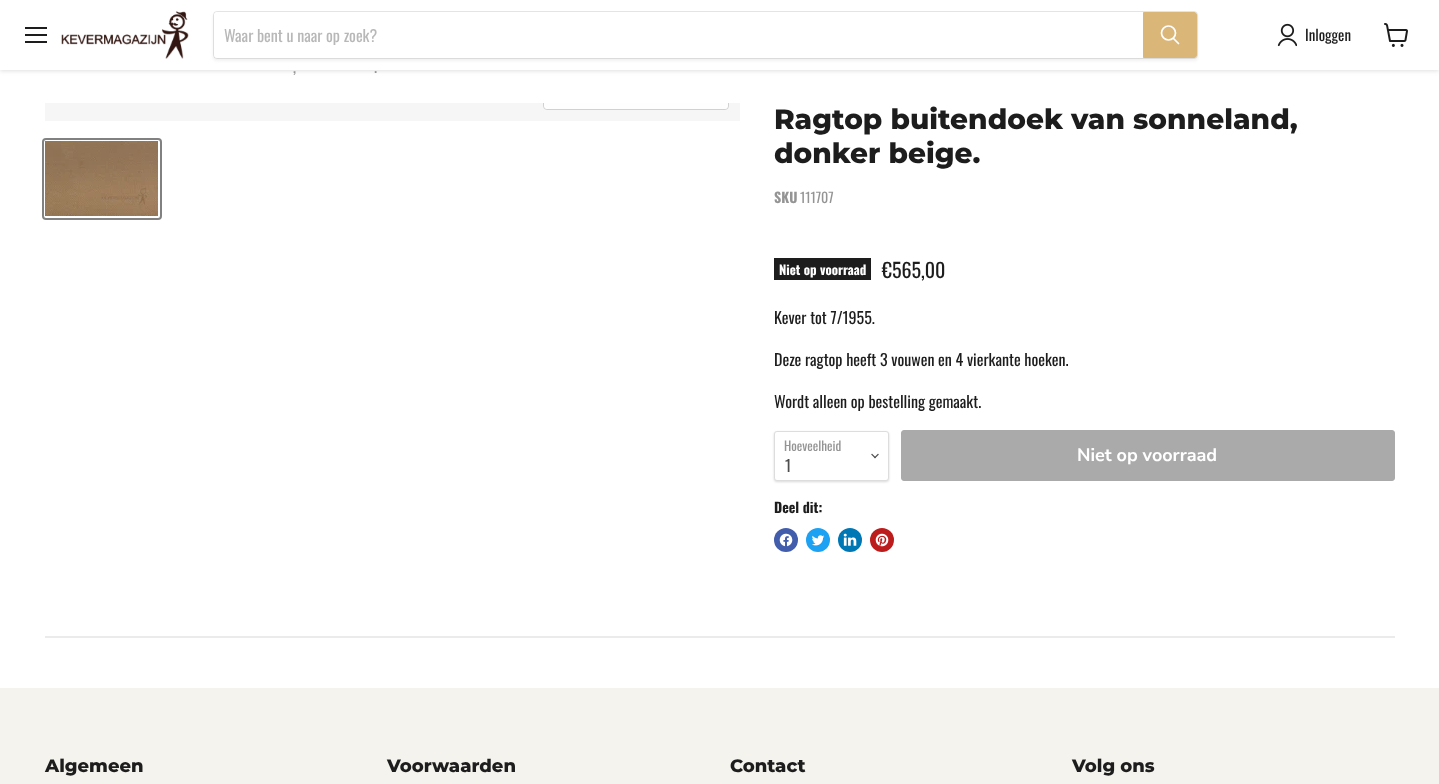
<svg xmlns="http://www.w3.org/2000/svg" width="1439" height="784" viewBox="0 0 1439 784">
  <defs>
    <clipPath id="clip1"><path d="M45 103h695v18H45z"/></clipPath>
  </defs>
  <rect width="100%" height="100%" fill="#fff"/>
  <path d="M0 1h1439v70H0z" fill="#80808040" filter="blur(2px)"/>
  <path d="M0 0h1439v70H0z" fill="#fff"/>
  <path d="M25 27h22v2H25z" fill="#1d1d1d"/>
  <path d="M25 34h22v2H25z" fill="#1d1d1d"/>
  <path d="M25 41h22v2H25z" fill="#1d1d1d"/>
  <image x="61" y="11" width="128" height="48" href="img/1.png"/>
  <rect x="213" y="13" width="985" height="48" rx="4" fill="#8080801c" filter="blur(1.5px)"/>
  <rect x="213.5" y="11.5" width="984" height="47" rx="3.5" fill="none" stroke="#80808033"/>
  <path d="M217 12H1143V58H217C215.5 58 214 56.5 214 55V15C214 13.5 215.5 12 217 12Z" fill="#fff"/>
  <path d="M1143.5 12.5H1194C1195.5 12.5 1196.5 13.5 1196.5 15V55C1196.5 56.5 1195.5 57.5 1194 57.5H1143.5Z" fill="#dab779" stroke="#dab779"/>
  <path d="M1178.5 43.5L1173.5 38.5" fill="none" stroke="#fff" stroke-width="1.7" stroke-linecap="round"/>
  <circle cx="1168.5" cy="33" r="7" fill="none" stroke="#fff" stroke-width="1.7"/>
  <image x="1277" y="23" width="20" height="24" href="img/2.png"/>
  <image x="1384" y="23" width="24" height="24" href="img/3.png"/>
  <path d="M45 103h695v18H45z" fill="#f6f6f6"/>
  <g clip-path="url(#clip1)">
    <rect x="543.5" y="80.5" width="185" height="29" rx="3.5" fill="none" stroke="#d1d1d1"/>
  </g>
  <path d="M544 103H728V106C728 107.5 726.5 109 725 109H547C545.5 109 544 107.5 544 106Z" fill="#ffffffe6"/>
  <rect x="43" y="139" width="118" height="80" rx="3" fill="none" stroke="#818181" stroke-width="2"/>
  <image x="45" y="141" width="113" height="75" href="img/4.png"/>
  <path d="M774 258h97v22H774z" fill="#1d1d1d"/>
  <rect x="774" y="432" width="115" height="50" rx="3" fill="#00000026" filter="blur(1px)"/>
  <rect x="774.5" y="431.5" width="114" height="49" rx="2.5" fill="#fff" stroke="#ddd"/>
  <image x="871" y="453" width="8" height="6" href="img/5.png"/>
  <rect x="901.5" y="430.5" width="493" height="50" rx="2.5" fill="#aaa" stroke="#aaa"/>
  <circle cx="786" cy="540" r="12" fill="#425dab"/>
  <image x="779" y="533" width="14" height="14" href="img/6.png"/>
  <circle cx="818" cy="540" r="12" fill="#1da1f2"/>
  <image x="812" y="535" width="13" height="11" href="img/7.png"/>
  <circle cx="850" cy="540" r="12" fill="#0077b5"/>
  <image x="843" y="533" width="14" height="13" href="img/8.png"/>
  <circle cx="882" cy="540" r="12" fill="#bd1c1c"/>
  <image x="875" y="533" width="14" height="14" href="img/9.png"/>
  <path d="M45 636h1350v2H45z" fill="#ebebeb"/>
  <path d="M0 688h1439v96H0z" fill="#f5f3ed"/>
  <text x="224" y="42" font-family="Oswald" font-size="16" fill="#b8b8b8">Waar bent u naar op zoek?</text>
  <text x="1305" y="41" font-family="Oswald" font-size="15" fill="#1d1d1d">Inloggen</text>
  <g font-family="Oswald" font-size="16" fill="#949494">
    <text x="293" y="73">,</text>
    <text x="374" y="73">.</text>
  </g>
  <g font-family="Montserrat" font-size="28" font-weight="800" fill="#1d1d1d">
    <text x="774" y="129">Ragtop buitendoek van sonneland,</text>
    <text x="774" y="163">donker beige.</text>
  </g>
  <text x="774" y="203" font-family="Oswald" font-size="14" font-weight="bold" fill="#949494">SKU</text>
  <text x="800" y="203" font-family="Oswald" font-size="14" fill="#949494">111707</text>
  <text x="779" y="275" font-family="Oswald" font-size="13" font-weight="bold" fill="#fff">Niet op voorraad</text>
  <text x="882" y="278" font-family="Oswald" font-size="20" fill="#1d1d1d">€565,00</text>
  <g font-family="Oswald" font-size="16" fill="#1d1d1d">
    <text x="774" y="324">Kever tot 7/1955.</text>
    <text x="774" y="366">Deze ragtop heeft 3 vouwen en 4 vierkante hoeken.</text>
    <text x="774" y="408">Wordt alleen op bestelling gemaakt.</text>
  </g>
  <text x="784" y="451" font-family="Oswald" font-size="13" fill="#949494">Hoeveelheid</text>
  <text x="785" y="472" font-family="Oswald" font-size="16" fill="#4d4d4d">1</text>
  <text x="1077" y="461" font-family="Nunito Sans" font-size="18" font-weight="bold" fill="#fff">Niet op voorraad</text>
  <text x="774" y="513" font-family="Oswald" font-size="14" font-weight="bold" fill="#1d1d1d">Deel dit:</text>
  <g font-family="Montserrat" font-size="18" font-weight="800" fill="#1d1d1d">
    <text x="45" y="772">Algemeen</text>
    <text x="387" y="772">Voorwaarden</text>
    <text x="730" y="772">Contact</text>
    <text x="1072" y="772">Volg ons</text>
  </g>
</svg>
